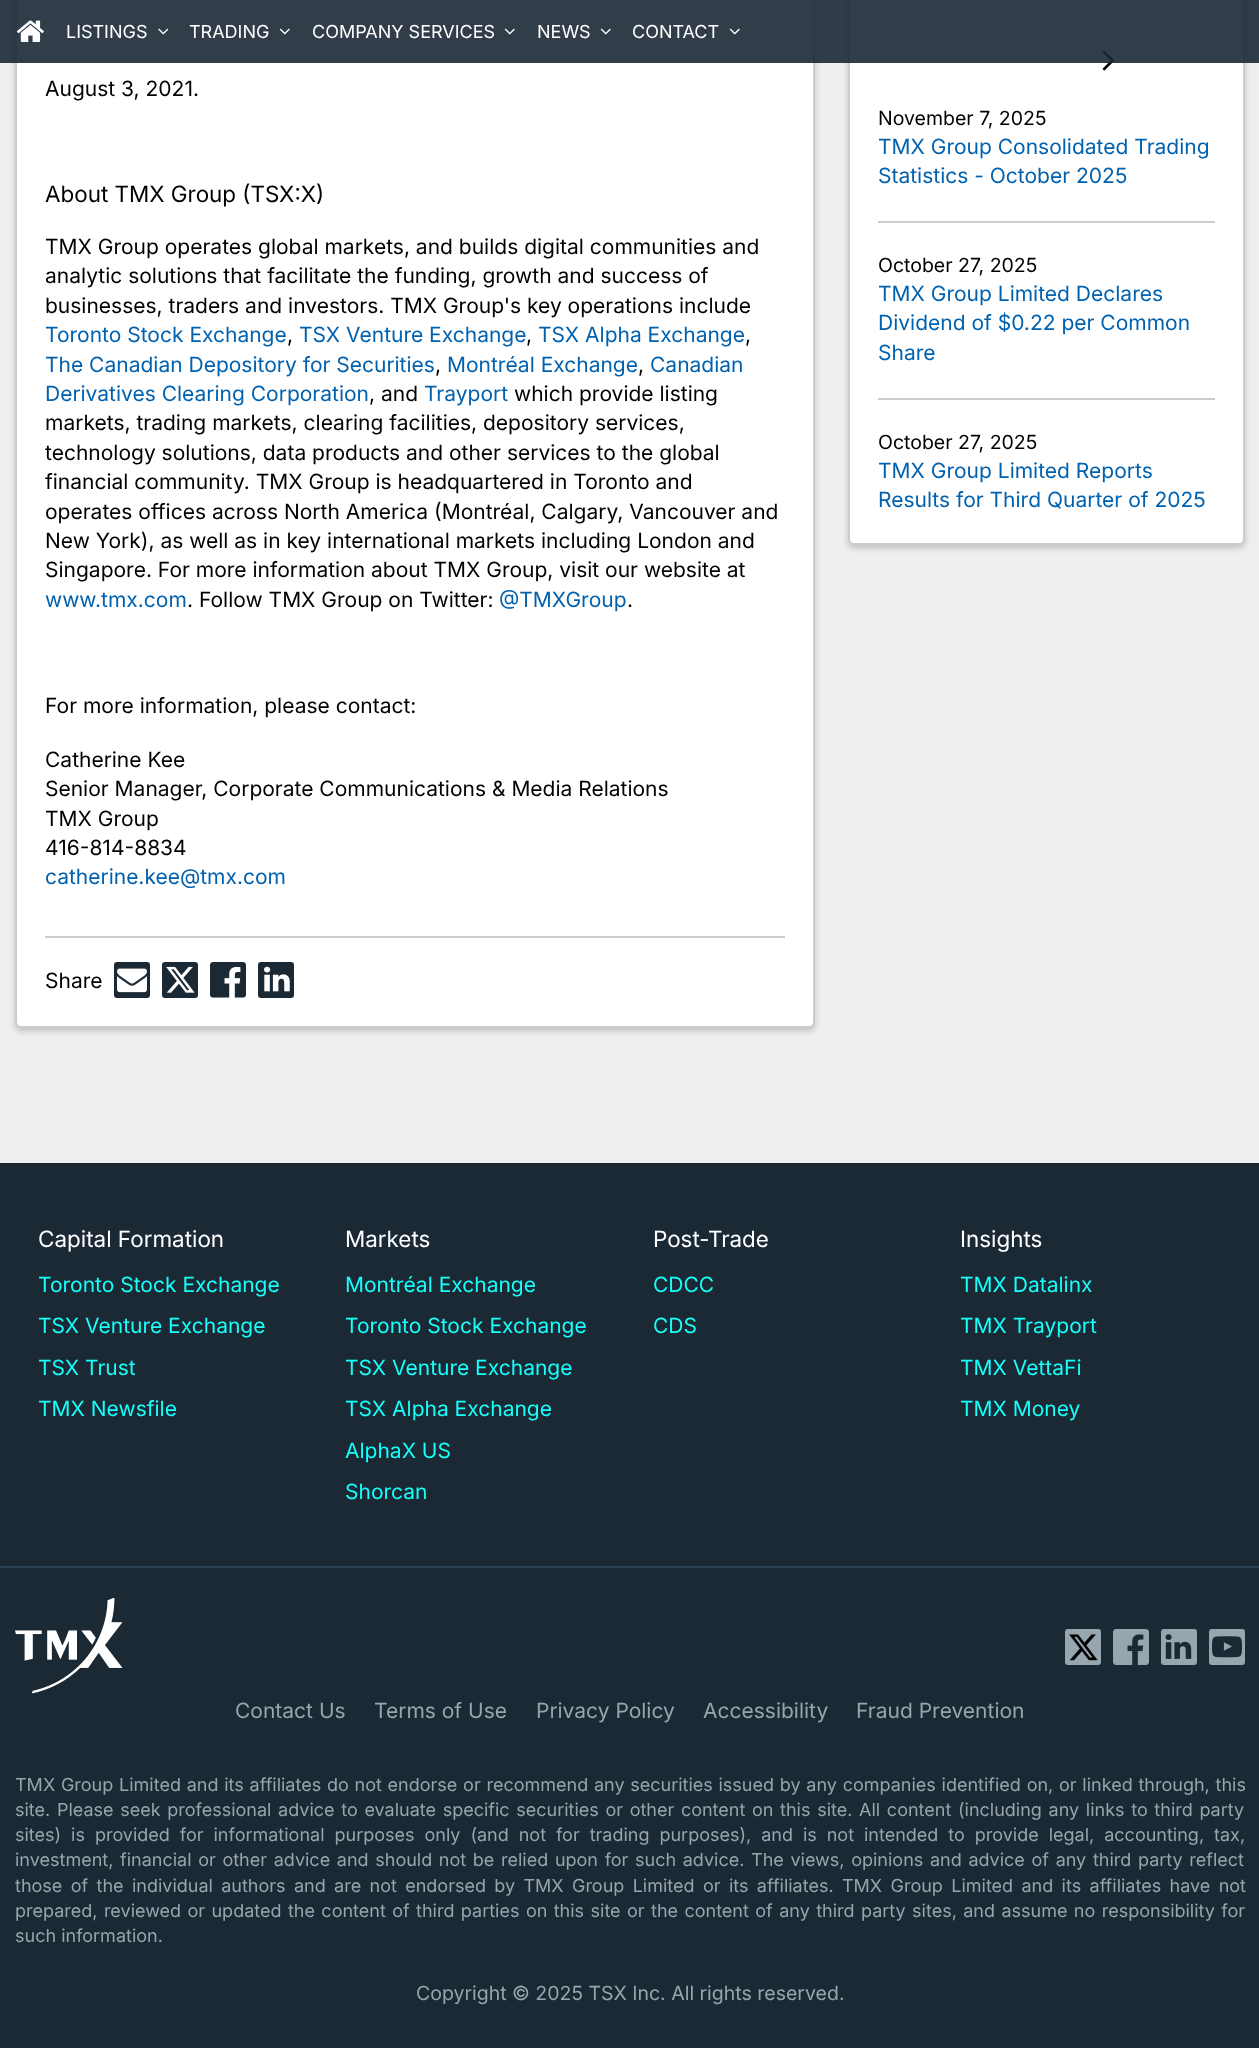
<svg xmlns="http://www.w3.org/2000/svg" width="1259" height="2048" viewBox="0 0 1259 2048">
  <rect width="100%" height="100%" fill="#efefef"/>
  <rect x="15" y="-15" width="800" height="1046" rx="6" fill="#00000033" filter="blur(3px)"/>
  <rect x="16" y="-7" width="798" height="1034" rx="5" fill="#fff" stroke="#ccc" stroke-width="2"/>
  <rect x="848" y="-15" width="397" height="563" rx="6" fill="#00000033" filter="blur(3px)"/>
  <rect x="849" y="-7" width="395" height="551" rx="5" fill="#fff" stroke="#ccc" stroke-width="2"/>
  <image x="1102" y="50" width="13" height="21" href="img/8.png"/>
  <path d="M0 0h1259v63H0z" fill="#1b2935e6"/>
  <image x="17" y="20" width="27" height="22" href="img/1.png"/>
  <image x="158" y="28" width="11" height="7" href="img/2.png"/>
  <image x="279" y="28" width="11" height="7" href="img/3.png"/>
  <image x="504" y="28" width="11" height="7" href="img/3.png"/>
  <image x="600" y="28" width="11" height="7" href="img/3.png"/>
  <image x="729" y="28" width="11" height="7" href="img/3.png"/>
  <path d="M45 936h740v2H45z" fill="#ccc"/>
  <rect x="114" y="962" width="36" height="36" rx="3" fill="#1b2935"/>
  <image x="117" y="968" width="30" height="25" href="img/4.png"/>
  <rect x="162" y="962" width="36" height="36" rx="3" fill="#1b2935"/>
  <image x="166" y="966" width="29" height="27" href="img/5.png"/>
  <image x="210" y="962" width="36" height="36" href="img/6.png"/>
  <rect x="258" y="962" width="36" height="36" rx="3" fill="#1b2935"/>
  <image x="264" y="966" width="26" height="26" href="img/7.png"/>
  <path d="M878 221h337v2H878z" fill="#ccc"/>
  <path d="M878 398h337v2H878z" fill="#ccc"/>
  <path d="M0 1163h1259v885H0z" fill="#1b2935"/>
  <path d="M0 1566h1259v2H0z" fill="#2c4357"/>
  <image x="15" y="1598" width="108" height="96" href="img/9.png"/>
  <rect x="1065" y="1629" width="36" height="36" rx="3" fill="#97a5ae"/>
  <image x="1069" y="1634" width="29" height="27" href="img/10.png"/>
  <image x="1113" y="1629" width="36" height="36" href="img/11.png"/>
  <rect x="1161" y="1629" width="36" height="36" rx="3" fill="#97a5ae"/>
  <image x="1165" y="1634" width="27" height="25" href="img/12.png"/>
  <rect x="1209" y="1629" width="36" height="36" rx="3" fill="#97a5ae"/>
  <image x="1212" y="1636" width="30" height="22" href="img/13.png"/>
  <g font-family="Inter" font-size="18" fill="#fff">
    <text x="66" y="38">LISTINGS</text>
    <text x="189" y="38">TRADING</text>
    <text x="312" y="38">COMPANY SERVICES</text>
    <text x="537" y="38">NEWS</text>
    <text x="632" y="38">CONTACT</text>
  </g>
  <text x="45" y="96" font-family="Inter" font-size="21" fill="#000">August 3, 2021.</text>
  <text x="45" y="202" font-family="'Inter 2'" font-size="22.5" fill="#000">About TMX Group (TSX:X)</text>
  <g font-family="Inter" font-size="21" fill="#000">
    <text x="45" y="254">TMX Group operates global markets, and builds digital communities and</text>
    <text x="45" y="283">analytic solutions that facilitate the funding, growth and success of</text>
    <text x="45" y="313">businesses, traders and investors. TMX Group's key operations include</text>
  </g>
  <text x="45" y="342" font-family="Inter" font-size="21" fill="#0061af">Toronto Stock Exchange</text>
  <text x="287" y="342" font-family="Inter" font-size="21" fill="#000">,</text>
  <text x="299" y="342" font-family="Inter" font-size="21" fill="#0061af">TSX Venture Exchange</text>
  <text x="526" y="342" font-family="Inter" font-size="21" fill="#000">,</text>
  <text x="538" y="342" font-family="Inter" font-size="21" fill="#0061af">TSX Alpha Exchange</text>
  <text x="745" y="342" font-family="Inter" font-size="21" fill="#000">,</text>
  <text x="45" y="372" font-family="Inter" font-size="21" fill="#0061af">The Canadian Depository for Securities</text>
  <text x="435" y="372" font-family="Inter" font-size="21" fill="#000">,</text>
  <text x="447" y="372" font-family="Inter" font-size="21" fill="#0061af">Montréal Exchange</text>
  <text x="638" y="372" font-family="Inter" font-size="21" fill="#000">,</text>
  <g font-family="Inter" font-size="21" fill="#0061af">
    <text x="650" y="372">Canadian</text>
    <text x="45" y="401">Derivatives Clearing Corporation</text>
  </g>
  <text x="369" y="401" font-family="Inter" font-size="21" fill="#000">, and</text>
  <text x="424" y="401" font-family="Inter" font-size="21" fill="#0061af">Trayport</text>
  <g font-family="Inter" font-size="21" fill="#000">
    <text x="514" y="401">which provide listing</text>
    <text x="45" y="430">markets, trading markets, clearing facilities, depository services,</text>
    <text x="45" y="460">technology solutions, data products and other services to the global</text>
    <text x="45" y="489">financial community. TMX Group is headquartered in Toronto and</text>
    <text x="45" y="519">operates offices across North America (Montréal, Calgary, Vancouver and</text>
    <text x="45" y="548">New York), as well as in key international markets including London and</text>
    <text x="45" y="577">Singapore. For more information about TMX Group, visit our website at</text>
  </g>
  <text x="45" y="607" font-family="Inter" font-size="21" fill="#0061af">www.tmx.com</text>
  <text x="187" y="607" font-family="Inter" font-size="21" fill="#000">. Follow TMX Group on Twitter:</text>
  <text x="499" y="607" font-family="Inter" font-size="21" fill="#0061af">@TMXGroup</text>
  <g font-family="Inter" font-size="21" fill="#000">
    <text x="627" y="607">.</text>
    <text x="45" y="713">For more information, please contact:</text>
    <text x="45" y="767">Catherine Kee</text>
    <text x="45" y="796">Senior Manager, Corporate Communications &amp; Media Relations</text>
    <text x="45" y="826">TMX Group</text>
    <text x="45" y="855">416-814-8834</text>
  </g>
  <text x="45" y="884" font-family="Inter" font-size="21" fill="#0061af">catherine.kee@tmx.com</text>
  <text x="45" y="988" font-family="Inter" font-size="21" fill="#000">Share</text>
  <text x="878" y="125" font-family="Inter" font-size="19.5" fill="#000">November 7, 2025</text>
  <g font-family="Inter" font-size="21" fill="#0061af">
    <text x="878" y="154">TMX Group Consolidated Trading</text>
    <text x="878" y="183">Statistics - October 2025</text>
  </g>
  <text x="878" y="272" font-family="Inter" font-size="19.5" fill="#000">October 27, 2025</text>
  <g font-family="Inter" font-size="21" fill="#0061af">
    <text x="878" y="301">TMX Group Limited Declares</text>
    <text x="878" y="330">Dividend of $0.22 per Common</text>
    <text x="878" y="360">Share</text>
  </g>
  <text x="878" y="449" font-family="Inter" font-size="19.5" fill="#000">October 27, 2025</text>
  <g font-family="Inter" font-size="21" fill="#0061af">
    <text x="878" y="478">TMX Group Limited Reports</text>
    <text x="878" y="507">Results for Third Quarter of 2025</text>
  </g>
  <text x="38" y="1247" font-family="'Inter 2'" font-size="22.5" fill="#fff">Capital Formation</text>
  <g font-family="Inter" font-size="21" fill="#16fffb">
    <text x="38" y="1292">Toronto Stock Exchange</text>
    <text x="38" y="1333">TSX Venture Exchange</text>
    <text x="38" y="1375">TSX Trust</text>
    <text x="38" y="1416">TMX Newsfile</text>
  </g>
  <text x="345" y="1247" font-family="'Inter 2'" font-size="22.5" fill="#fff">Markets</text>
  <g font-family="Inter" font-size="21" fill="#16fffb">
    <text x="345" y="1292">Montréal Exchange</text>
    <text x="345" y="1333">Toronto Stock Exchange</text>
    <text x="345" y="1375">TSX Venture Exchange</text>
    <text x="345" y="1416">TSX Alpha Exchange</text>
    <text x="345" y="1458">AlphaX US</text>
    <text x="345" y="1499">Shorcan</text>
  </g>
  <text x="653" y="1247" font-family="'Inter 2'" font-size="22.5" fill="#fff">Post-Trade</text>
  <g font-family="Inter" font-size="21" fill="#16fffb">
    <text x="653" y="1292">CDCC</text>
    <text x="653" y="1333">CDS</text>
  </g>
  <text x="960" y="1247" font-family="'Inter 2'" font-size="22.5" fill="#fff">Insights</text>
  <g font-family="Inter" font-size="21" fill="#16fffb">
    <text x="960" y="1292">TMX Datalinx</text>
    <text x="960" y="1333">TMX Trayport</text>
    <text x="960" y="1375">TMX VettaFi</text>
    <text x="960" y="1416">TMX Money</text>
  </g>
  <g font-family="Inter" font-size="21" fill="#97a5ae">
    <text x="235" y="1718">Contact Us</text>
    <text x="374" y="1718">Terms of Use</text>
    <text x="536" y="1718">Privacy Policy</text>
    <text x="703" y="1718">Accessibility</text>
    <text x="856" y="1718">Fraud Prevention</text>
  </g>
  <g font-family="Inter" font-size="18" fill="#97a5ae">
    <text x="15" y="1791" word-spacing="0.7">TMX Group Limited and its affiliates do not endorse or recommend any securities issued by any companies identified on, or linked through, this</text>
    <text x="15" y="1816" word-spacing="1.6">site. Please seek professional advice to evaluate specific securities or other content on this site. All content (including any links to third party</text>
    <text x="15" y="1841" word-spacing="4.9">sites) is provided for informational purposes only (and not for trading purposes), and is not intended to provide legal, accounting, tax,</text>
    <text x="15" y="1866" word-spacing="1.6">investment, financial or other advice and should not be relied upon for such advice. The views, opinions and advice of any third party reflect</text>
    <text x="15" y="1892" word-spacing="3.3">those of the individual authors and are not endorsed by TMX Group Limited or its affiliates. TMX Group Limited and its affiliates have not</text>
    <text x="15" y="1917" word-spacing="1.35">prepared, reviewed or updated the content of third parties on this site or the content of any third party sites, and assume no responsibility for</text>
    <text x="15" y="1942">such information.</text>
  </g>
  <text x="416" y="2000" font-family="Inter" font-size="19.5" fill="#97a5ae">Copyright © 2025 TSX Inc. All rights reserved.</text>
</svg>
